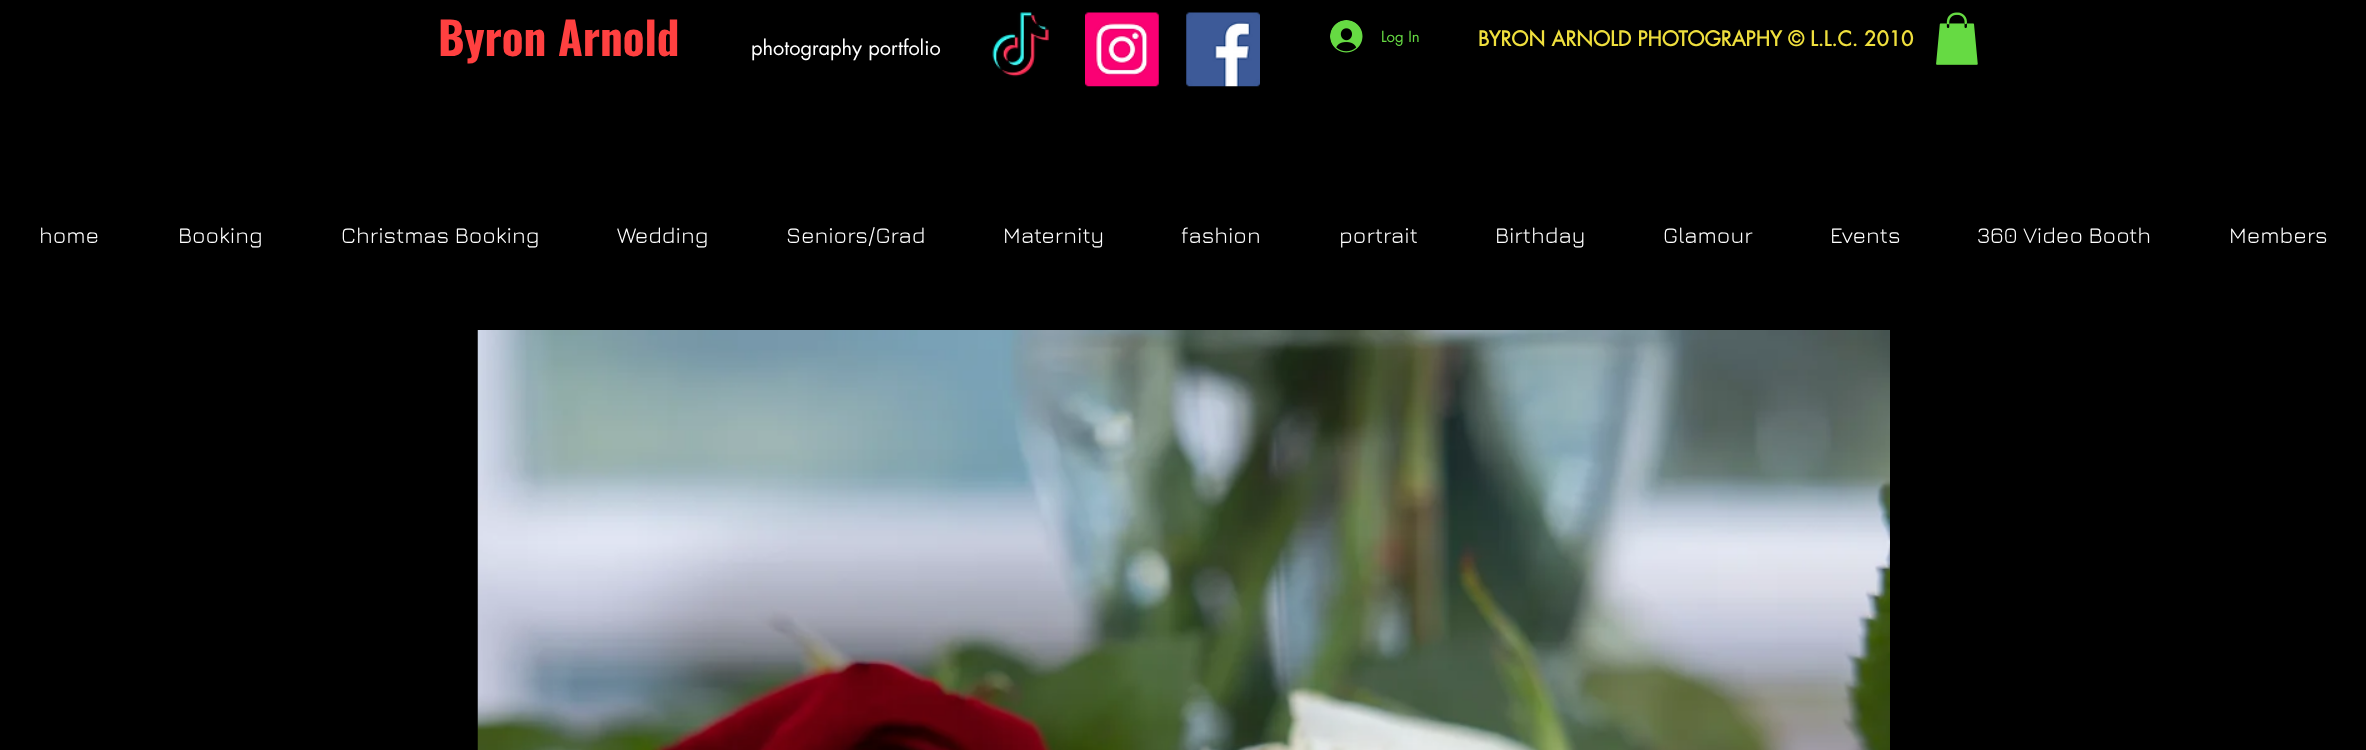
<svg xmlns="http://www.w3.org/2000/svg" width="2366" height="750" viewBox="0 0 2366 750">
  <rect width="100%" height="100%" fill="#000"/>
  <image x="992" y="12" width="57" height="65" href="img/1.png"/>
  <image x="1085" y="12" width="74" height="75" href="img/2.png"/>
  <image x="1186" y="12" width="74" height="75" href="img/3.png"/>
  <image x="1330" y="20" width="33" height="33" href="img/4.png"/>
  <image x="1936" y="12" width="42" height="53" href="img/5.png"/>
  <image x="477" y="330" width="1413" height="420" href="img/6.png"/>
  <text x="438" y="56" font-family="Oswald" font-size="45" font-weight="bold" fill="#ff4040">Byron Arnold</text>
  <text x="751" y="55" font-family="futura" font-size="20" fill="#fff">photography portfolio</text>
  <text x="1381" y="42" font-family="futura" font-size="15" fill="#66da43">Log In</text>
  <text x="1478" y="46" font-family="futura" font-size="20" font-weight="bold" fill="#efdf3d">BYRON ARNOLD PHOTOGRAPHY © L.L.C. 2010</text>
  <g font-family="Jura" font-size="22.5" fill="#fff">
    <text x="39" y="243">home</text>
    <text x="178" y="243">Booking</text>
    <text x="341" y="243">Christmas Booking</text>
    <text x="617" y="243">Wedding</text>
    <text x="786" y="243">Seniors/Grad</text>
    <text x="1003" y="243">Maternity</text>
    <text x="1181" y="243">fashion</text>
    <text x="1339" y="243">portrait</text>
    <text x="1495" y="243">Birthday</text>
    <text x="1663" y="243">Glamour</text>
    <text x="1830" y="243">Events</text>
    <text x="1977" y="243">360 Video Booth</text>
    <text x="2229" y="243">Members</text>
  </g>
</svg>
